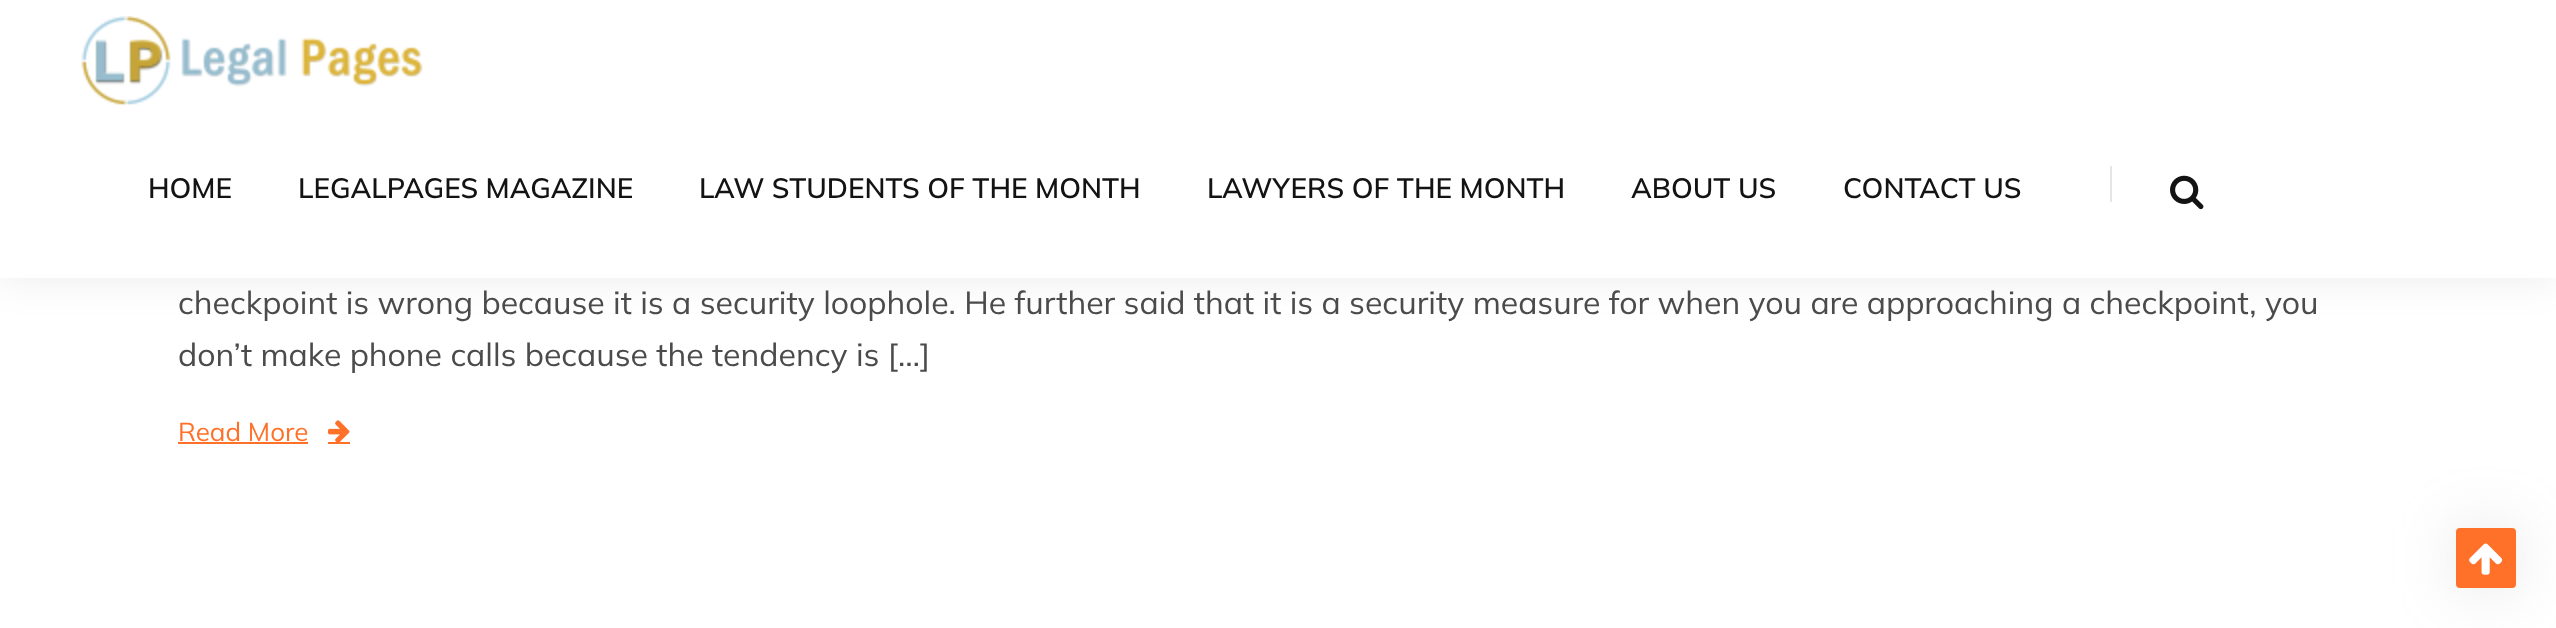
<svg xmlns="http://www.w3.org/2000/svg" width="2556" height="628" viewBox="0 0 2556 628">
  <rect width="100%" height="100%" fill="#fff"/>
  <path d="M0 0h2556v278H0z" fill="#0a101514" filter="blur(20px)"/>
  <path d="M0 0h2556v278H0z" fill="#fff"/>
  <image x="81" y="16" width="342" height="90" href="img/1.png"/>
  <path d="M2110 166h2v36H2110z" fill="#e5e5e5"/>
  <image x="2170" y="175" width="34" height="35" href="img/2.png"/>
  <path d="M178 442h130v2H178z" fill="#ff7029"/>
  <image x="328" y="420" width="22" height="22" href="img/3.png"/>
  <path d="M328 442h22v2H328z" fill="#ff7029"/>
  <rect x="2456" y="528" width="60" height="60" rx="4" fill="#9c9c9c40" filter="blur(30px)"/>
  <rect x="2456" y="528" width="60" height="60" rx="4" fill="#ff7029"/>
  <image x="2469" y="543" width="34" height="32" href="img/4.png"/>
  <g font-family="Mulish" font-size="28" font-weight="600" fill="#131313">
    <text x="148" y="198">HOME</text>
    <text x="298" y="198">LEGALPAGES MAGAZINE</text>
    <text x="699" y="198">LAW STUDENTS OF THE MONTH</text>
    <text x="1207" y="198">LAWYERS OF THE MONTH</text>
    <text x="1631" y="198">ABOUT US</text>
    <text x="1843" y="198">CONTACT US</text>
  </g>
  <g font-family="Mulish" font-size="32" fill="#4b4b4b">
    <text x="178" y="314">checkpoint is wrong because it is a security loophole. He further said that it is a security measure for when you are approaching a checkpoint, you</text>
    <text x="178" y="366">don’t make phone calls because the tendency is […]</text>
  </g>
  <text x="178" y="441" font-family="Mulish" font-size="26" fill="#ff7029">Read More</text>
</svg>
